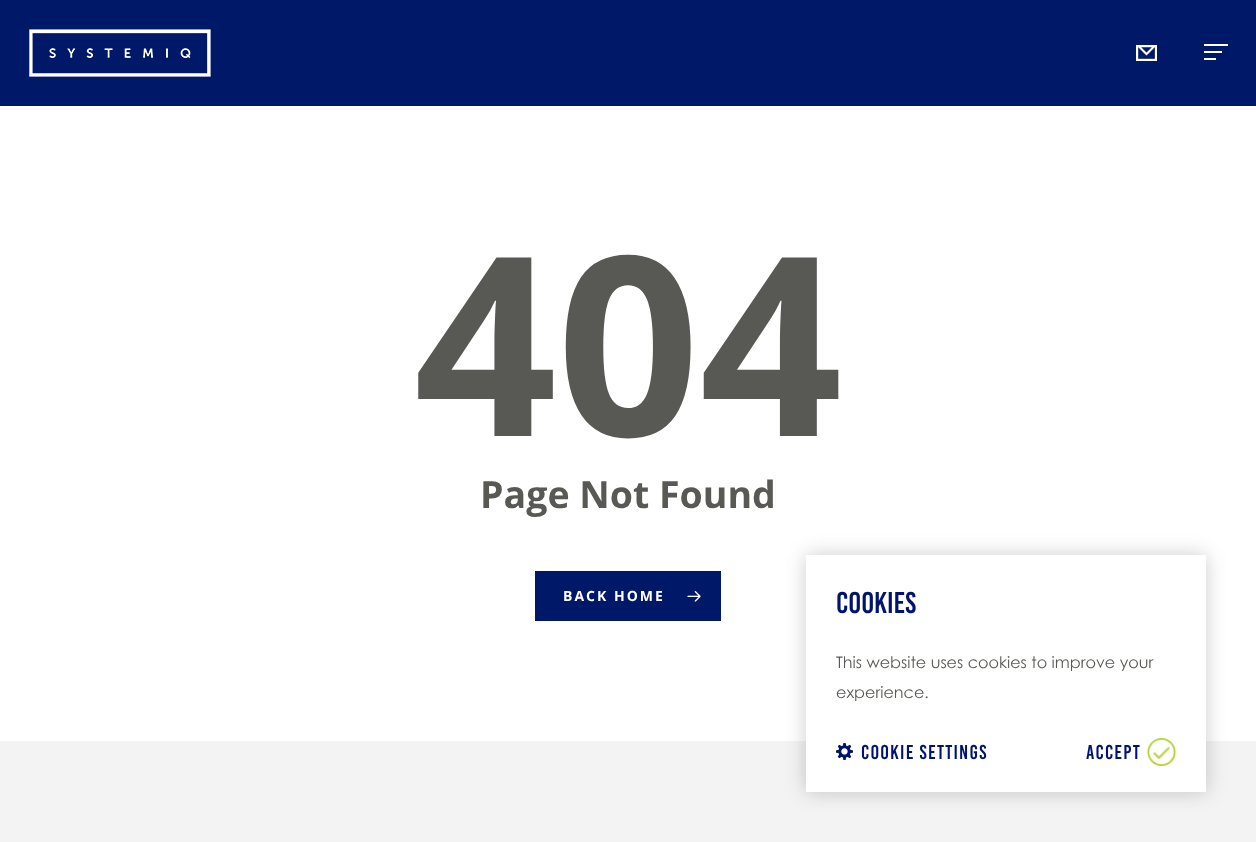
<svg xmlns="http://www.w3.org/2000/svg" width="1256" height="842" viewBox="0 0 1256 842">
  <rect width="100%" height="100%" fill="#fff"/>
  <path d="M0 0h1256v106H0z" fill="#001868"/>
  <image x="29" y="29" width="182" height="48" href="img/1.png"/>
  <image x="1136" y="45" width="21" height="16" href="img/2.png"/>
  <path d="M1204 44h24v2H1204z" fill="#fff"/>
  <path d="M1204 51h18v2H1204z" fill="#fff"/>
  <path d="M1204 58h12v2H1204z" fill="#fff"/>
  <path d="M535 571h186v50H535z" fill="#001868"/>
  <image x="687" y="591" width="14" height="11" href="img/3.png"/>
  <path d="M0 741h1256v101H0z" fill="#f3f3f3"/>
  <path d="M806 555h400v237H806z" fill="#00000033" filter="blur(10px)"/>
  <path d="M806 555h400v237H806z" fill="#fff"/>
  <image x="836" y="743" width="17" height="17" href="img/4.png"/>
  <image x="1147" y="738" width="29" height="28" href="img/5.png"/>
  <text x="414" y="436" font-family="Open Sans" font-size="250" font-weight="bold" fill="#585854">404</text>
  <text x="480" y="508" font-family="Open Sans" font-size="37.5" font-weight="bold" fill="#585854">Page Not Found</text>
  <text x="563" y="601" font-family="Open Sans" font-size="14" font-weight="bold" letter-spacing="2" fill="#fff">BACK HOME</text>
  <text x="836" y="613" font-family="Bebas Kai" font-size="30" fill="#00146d">Cookies</text>
  <g font-family="Century Gothic" font-size="16" fill="#585854">
    <text x="836" y="668">This website uses cookies to improve your</text>
    <text x="836" y="698">experience.</text>
  </g>
  <g font-family="Bebas Kai" font-size="20" letter-spacing="1.25" fill="#00146d">
    <text x="861" y="759">Cookie settings</text>
    <text x="1086" y="759">ACCEPT</text>
  </g>
</svg>
